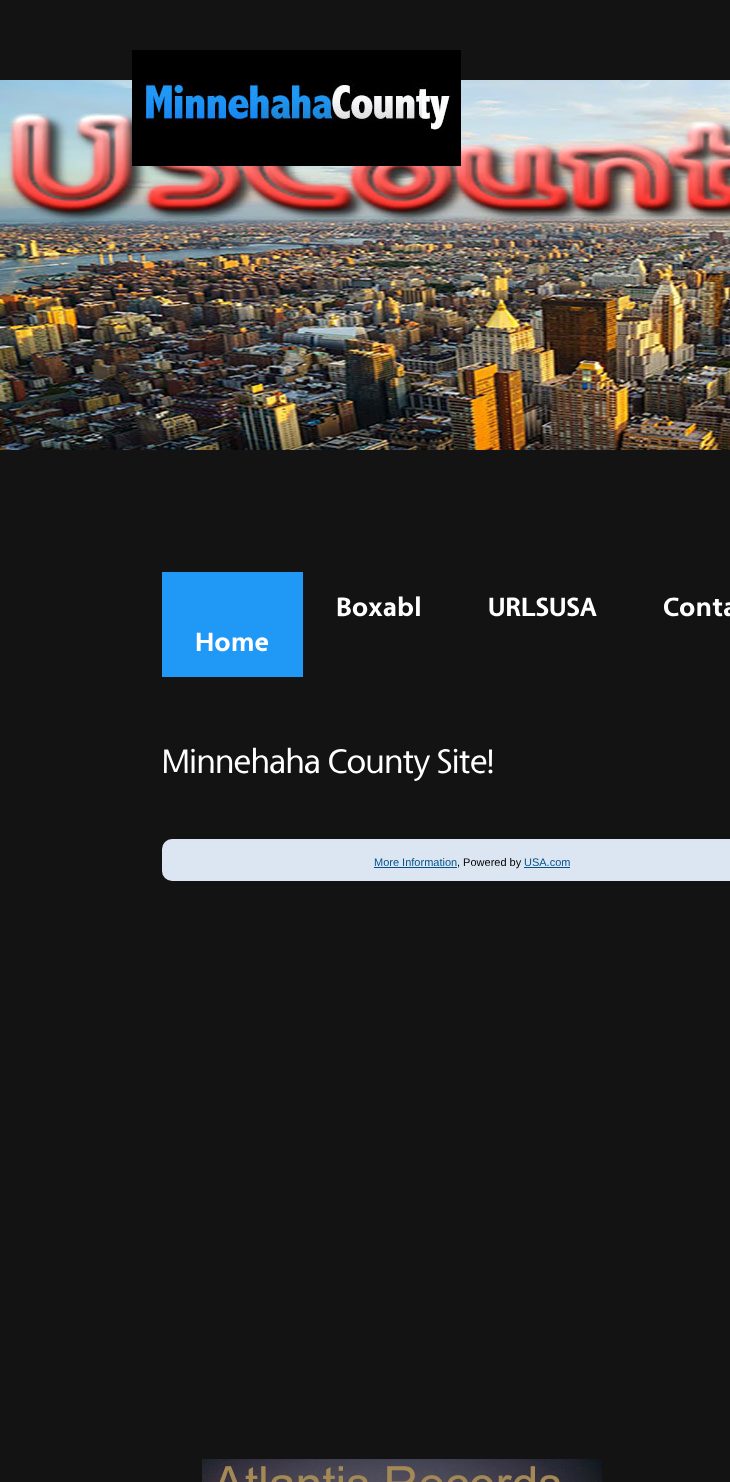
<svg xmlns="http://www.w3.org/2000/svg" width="730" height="1482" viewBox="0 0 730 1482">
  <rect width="100%" height="100%" fill="#131313"/>
  <image x="0" y="80" width="730" height="370" href="img/2.png"/>
  <image x="132" y="50" width="329" height="116" href="img/1.png"/>
  <path d="M162 572h141v105H162z" fill="#2098f5"/>
  <image x="196" y="632" width="73" height="20" href="img/3.png"/>
  <image x="337" y="596" width="83" height="21" href="img/4.png"/>
  <image x="489" y="597" width="108" height="20" href="img/5.png"/>
  <image x="663" y="597" width="67" height="20" href="img/6.png"/>
  <image x="164" y="747" width="155" height="27" href="img/7.png"/>
  <image x="329" y="749" width="101" height="32" href="img/8.png"/>
  <image x="438" y="748" width="55" height="26" href="img/9.png"/>
  <rect x="162" y="839" width="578" height="42" rx="10" fill="#dce6f2"/>
  <path d="M374 867h83v1H374z" fill="#03528b"/>
  <path d="M524 867h46v1H524z" fill="#03528b"/>
  <image x="202" y="1459" width="400" height="23" href="img/10.png"/>
  <text x="374" y="866" font-family="Liberation Sans" font-size="11" fill="#03528b">More Information</text>
  <text x="457" y="866" font-family="Liberation Sans" font-size="11" fill="#000">, Powered by</text>
  <text x="524" y="866" font-family="Liberation Sans" font-size="11" fill="#03528b">USA.com</text>
</svg>
